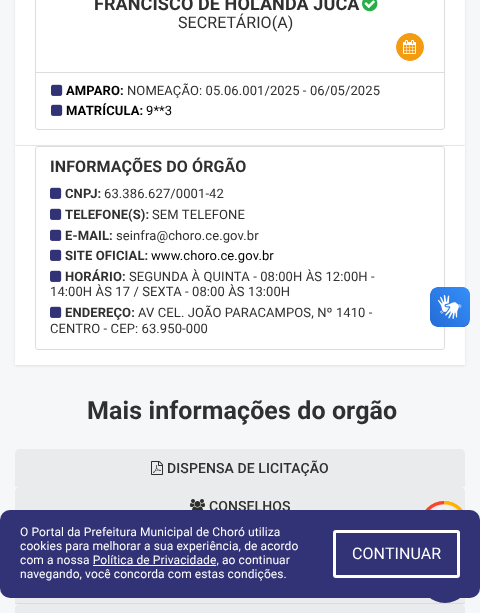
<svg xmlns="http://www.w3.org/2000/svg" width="480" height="613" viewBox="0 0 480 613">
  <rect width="100%" height="100%" fill="#f6f7f8"/>
  <path d="M15 -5h450v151H15z" fill="#03004717" filter="blur(1.5px)"/>
  <path d="M15 0h450v145H15z" fill="#fff"/>
  <rect x="35.5" y="-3.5" width="409" height="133" rx="2.5" fill="none" stroke="#ddd"/>
  <path d="M36 72h408v1H36z" fill="#ddd"/>
  <image x="362" y="0" width="16" height="12" href="img/1.png"/>
  <circle cx="410" cy="47" r="13.5" fill="#f39c12" stroke="#f39c12"/>
  <image x="403" y="40" width="13" height="14" href="img/2.png"/>
  <image x="51" y="84" width="12" height="12" href="img/3.png"/>
  <image x="51" y="104" width="12" height="12" href="img/3.png"/>
  <path d="M15 147h450v219H15z" fill="#03004717" filter="blur(1.5px)"/>
  <path d="M15 146h450v219H15z" fill="#fff"/>
  <rect x="35.5" y="146.5" width="409" height="203" rx="2.5" fill="none" stroke="#ddd"/>
  <image x="50" y="187" width="12" height="12" href="img/3.png"/>
  <image x="50" y="208" width="12" height="12" href="img/3.png"/>
  <image x="50" y="229" width="12" height="12" href="img/3.png"/>
  <image x="50" y="249" width="12" height="12" href="img/3.png"/>
  <image x="50" y="270" width="12" height="12" href="img/3.png"/>
  <image x="50" y="306" width="12" height="12" href="img/3.png"/>
  <path d="M20 449H460C463 449 465 451 465 454V487H15V454C15 451 17 449 20 449Z" fill="#eaebec"/>
  <image x="151" y="461" width="12" height="14" href="img/4.png"/>
  <path d="M20 487H460C463 487 465 489 465 492V525H15V492C15 489 17 487 20 487Z" fill="#eaebec"/>
  <image x="190" y="499" width="15" height="11" href="img/5.png"/>
  <path d="M15 603h450v1H15z" fill="#dbdbdb"/>
  <path d="M15 598h450v5H15z" fill="#eaebec"/>
  <path d="M20 604H460C463 604 465 606 465 609V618H15V609C15 606 17 604 20 604Z" fill="#eaebec"/>
  <image x="430" y="287" width="40" height="40" href="img/6.png"/>
  <image x="430" y="287" width="40" height="40" href="img/7.png"/>
  <image x="425" y="501" width="38" height="9" href="img/8.png"/>
  <circle cx="445" cy="578" r="25" fill="#323276"/>
  <text x="94" y="10" font-family="Roboto" font-size="18" font-weight="bold" letter-spacing="0.1" fill="#303030">FRANCISCO DE HOLANDA JUCÁ</text>
  <text x="178" y="28" font-family="Roboto" font-size="16" letter-spacing="0.1" fill="#303030">SECRETÁRIO(A)</text>
  <text x="66" y="95" font-family="Roboto" font-size="13" font-weight="bold" letter-spacing="0.1" fill="#000">AMPARO:</text>
  <text x="127" y="95" font-family="Roboto" font-size="13" letter-spacing="0.1" fill="#303030">NOMEAÇÃO: 05.06.001/2025 - 06/05/2025</text>
  <text x="66" y="115" font-family="Roboto" font-size="13" font-weight="bold" letter-spacing="0.1" fill="#000">MATRÍCULA:</text>
  <text x="146" y="115" font-family="Roboto" font-size="13" letter-spacing="0.1" fill="#000">9**3</text>
  <text x="50" y="172" font-family="Roboto" font-size="16" font-weight="bold" letter-spacing="0.1" fill="#303030">INFORMAÇÕES DO ÓRGÃO</text>
  <text x="65" y="198" font-family="Roboto" font-size="13" font-weight="bold" letter-spacing="0.1" fill="#303030">CNPJ:</text>
  <text x="104" y="198" font-family="Roboto" font-size="13" letter-spacing="0.1" fill="#303030">63.386.627/0001-42</text>
  <text x="65" y="219" font-family="Roboto" font-size="13" font-weight="bold" letter-spacing="0.1" fill="#303030">TELEFONE(S):</text>
  <text x="152" y="219" font-family="Roboto" font-size="13" letter-spacing="0.1" fill="#303030">SEM TELEFONE</text>
  <text x="65" y="240" font-family="Roboto" font-size="13" font-weight="bold" letter-spacing="0.1" fill="#303030">E-MAIL:</text>
  <text x="116" y="240" font-family="Roboto" font-size="13" letter-spacing="0.1" fill="#303030">seinfra@choro.ce.gov.br</text>
  <text x="65" y="260" font-family="Roboto" font-size="13" font-weight="bold" letter-spacing="0.1" fill="#303030">SITE OFICIAL:</text>
  <text x="151" y="260" font-family="Roboto" font-size="13" letter-spacing="0.1" fill="#000">www.choro.ce.gov.br</text>
  <text x="65" y="281" font-family="Roboto" font-size="13" font-weight="bold" letter-spacing="0.1" fill="#303030">HORÁRIO:</text>
  <g font-family="Roboto" font-size="13" letter-spacing="0.1" fill="#303030">
    <text x="129" y="281">SEGUNDA À QUINTA - 08:00H ÀS 12:00H -</text>
    <text x="50" y="296">14:00H ÀS 17 / SEXTA - 08:00 ÀS 13:00H</text>
  </g>
  <text x="65" y="317" font-family="Roboto" font-size="13" font-weight="bold" letter-spacing="0.1" fill="#303030">ENDEREÇO:</text>
  <g font-family="Roboto" font-size="13" letter-spacing="0.1" fill="#303030">
    <text x="138" y="317">AV CEL. JOÃO PARACAMPOS, Nº 1410 -</text>
    <text x="50" y="333">CENTRO - CEP: 63.950-000</text>
  </g>
  <text x="87" y="419" font-family="Roboto" font-size="25" font-weight="bold" letter-spacing="0.1" fill="#303030">Mais informações do orgão</text>
  <g font-family="Roboto" font-size="14" font-weight="500" letter-spacing="0.1" fill="#303030">
    <text x="167" y="473">DISPENSA DE LICITAÇÃO</text>
    <text x="209" y="511">CONSELHOS</text>
  </g>
  <rect y="510" width="480" height="88" rx="10" fill="#323276"/>
  <g font-family="Roboto" font-size="12" letter-spacing="0.1" fill="#fff">
    <text x="20" y="536">O Portal da Prefeitura Municipal de Choró utiliza</text>
    <text x="20" y="550">cookies para melhorar a sua experiência, de acordo</text>
    <text x="20" y="564">com a nossa Política de Privacidade, ao continuar</text>
  </g>
  <path d="M93 565h123v1H93z" fill="#fff"/>
  <text x="20" y="578" font-family="Roboto" font-size="12" letter-spacing="0.1" fill="#fff">navegando, você concorda com estas condições.</text>
  <rect x="334.5" y="531.5" width="124" height="45" rx="1.5" fill="none" stroke="#fff" stroke-width="3"/>
  <text x="352" y="559" font-family="Roboto" font-size="16" letter-spacing="0.1" fill="#fff">CONTINUAR</text>
</svg>
